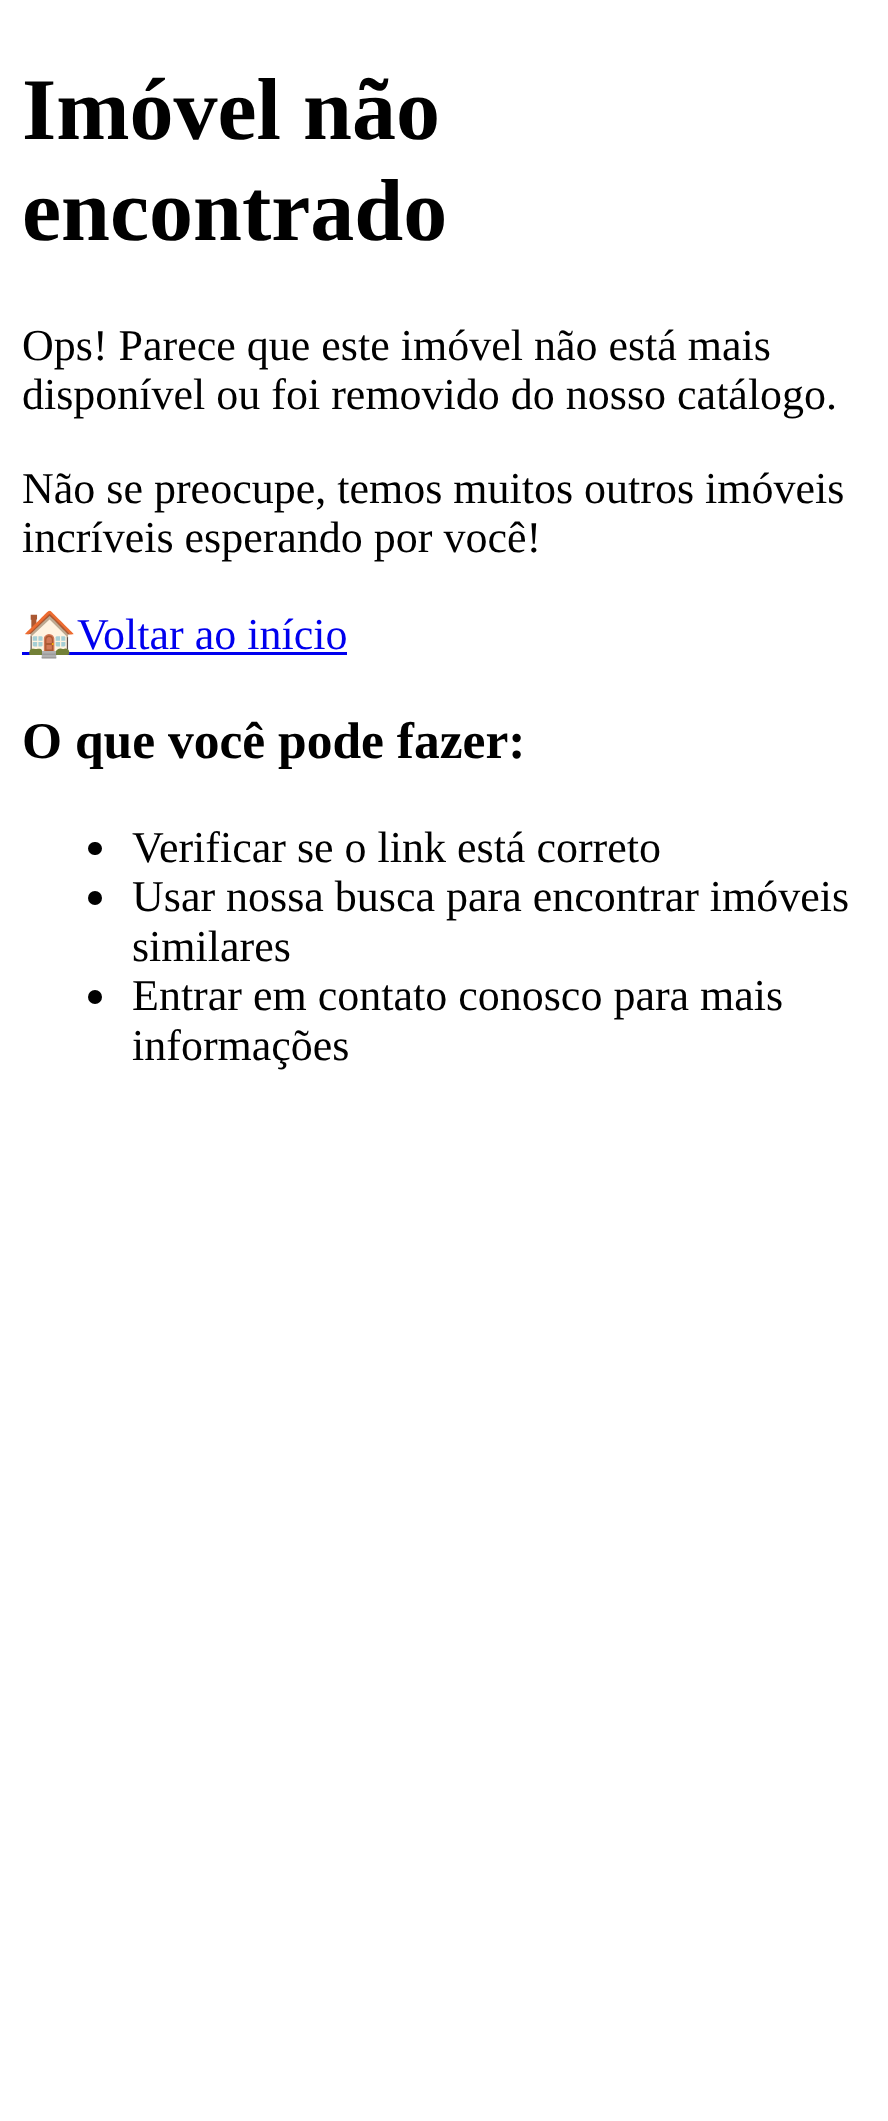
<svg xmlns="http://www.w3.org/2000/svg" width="888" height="2121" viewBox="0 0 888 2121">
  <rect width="100%" height="100%" fill="#fff"/>
  <path d="M22 652h325v3H22z" fill="#00e"/>
  <rect x="88" y="842" width="14" height="13" rx="6.5" fill="#000"/>
  <circle cx="95" cy="898" r="7" fill="#000"/>
  <circle cx="95" cy="997" r="7" fill="#000"/>
  <g font-family="Liberation Serif" font-size="88" font-weight="bold" fill="#000">
    <text x="22" y="139">Imóvel não</text>
    <text x="22" y="240">encontrado</text>
  </g>
  <g font-family="Liberation Serif" font-size="44" fill="#000">
    <text x="22" y="360">Ops! Parece que este imóvel não está mais</text>
    <text x="22" y="409">disponível ou foi removido do nosso catálogo.</text>
    <text x="22" y="503">Não se preocupe, temos muitos outros imóveis</text>
    <text x="22" y="552">incríveis esperando por você!</text>
  </g>
  <text x="22" y="649" font-family="Noto Color Emoji" font-size="44" fill="#00e">🏠</text>
  <text x="77" y="649" font-family="Liberation Serif" font-size="44" fill="#00e">Voltar ao início</text>
  <text x="22" y="758" font-family="Liberation Serif" font-size="51.5" font-weight="bold" fill="#000">O que você pode fazer:</text>
  <g font-family="Liberation Serif" font-size="44" fill="#000">
    <text x="132" y="862">Verificar se o link está correto</text>
    <text x="132" y="911">Usar nossa busca para encontrar imóveis</text>
    <text x="132" y="961">similares</text>
    <text x="132" y="1010">Entrar em contato conosco para mais</text>
    <text x="132" y="1060">informações</text>
  </g>
</svg>
